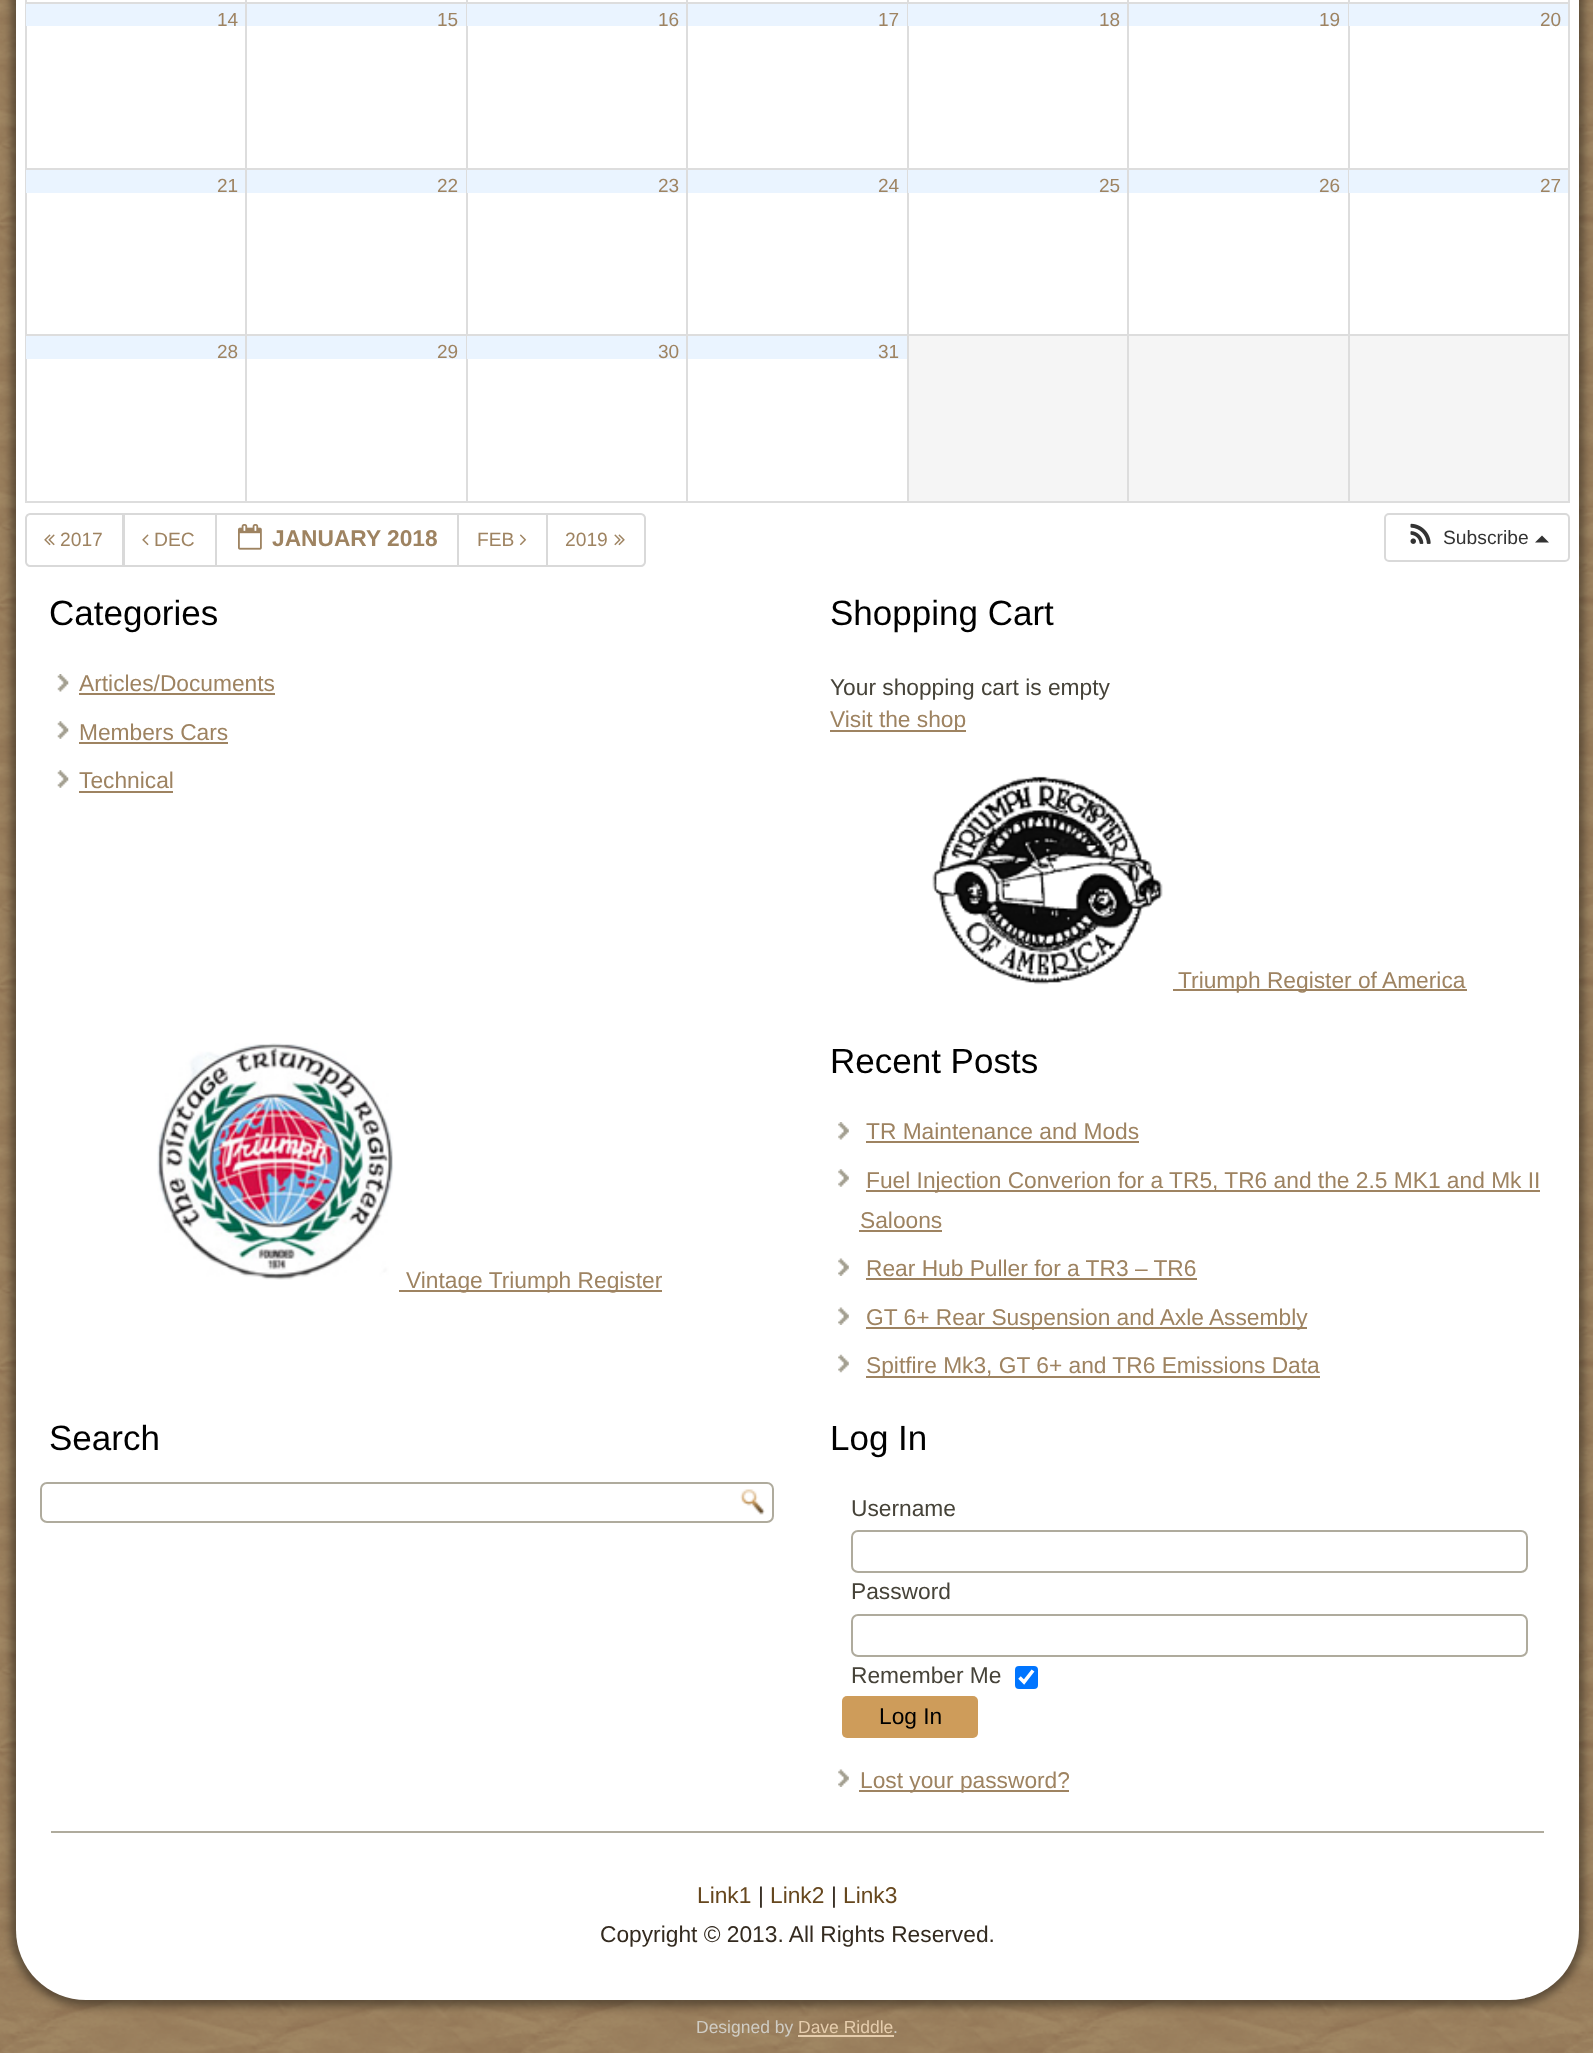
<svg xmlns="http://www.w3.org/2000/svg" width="1593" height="2053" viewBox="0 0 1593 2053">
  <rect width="100%" height="100%" fill="#9b805f"/>
  <image x="0" y="0" width="1593" height="2053" href="img/1.png"/>
  <rect x="11" y="-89" width="1573" height="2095" rx="75" fill="#00000066" filter="blur(4.5px)"/>
  <rect x="16" y="-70" width="1563" height="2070" rx="70" fill="#fff"/>
  <path d="M1568 0h2v502H1568z" fill="#ddd"/>
  <path d="M25 501h1545v2H25z" fill="#ddd"/>
  <path d="M25 0h2v502H25z" fill="#ddd"/>
  <path d="M1348 2h222v2H1348z" fill="#ddd"/>
  <path d="M1348 168h222v2H1348z" fill="#ddd"/>
  <path d="M1348 334h222v2H1348z" fill="#ddd"/>
  <path d="M1348 334h2v168H1348z" fill="#ddd"/>
  <path d="M1127 334h222v2H1127z" fill="#ddd"/>
  <path d="M1348 168h2v168H1348z" fill="#ddd"/>
  <path d="M1127 168h222v2H1127z" fill="#ddd"/>
  <path d="M1348 2h2v168H1348z" fill="#ddd"/>
  <path d="M1127 2h222v2H1127z" fill="#ddd"/>
  <path d="M1127 334h2v168H1127z" fill="#ddd"/>
  <path d="M907 334h222v2H907z" fill="#ddd"/>
  <path d="M1127 168h2v168H1127z" fill="#ddd"/>
  <path d="M907 168h222v2H907z" fill="#ddd"/>
  <path d="M1127 2h2v168H1127z" fill="#ddd"/>
  <path d="M907 2h222v2H907z" fill="#ddd"/>
  <path d="M907 334h2v168H907z" fill="#ddd"/>
  <path d="M686 334h222v2H686z" fill="#ddd"/>
  <path d="M907 168h2v168H907z" fill="#ddd"/>
  <path d="M686 168h222v2H686z" fill="#ddd"/>
  <path d="M907 2h2v168H907z" fill="#ddd"/>
  <path d="M686 2h222v2H686z" fill="#ddd"/>
  <path d="M686 334h2v168H686z" fill="#ddd"/>
  <path d="M466 334h222v2H466z" fill="#ddd"/>
  <path d="M686 168h2v168H686z" fill="#ddd"/>
  <path d="M466 168h222v2H466z" fill="#ddd"/>
  <path d="M686 2h2v168H686z" fill="#ddd"/>
  <path d="M466 2h222v2H466z" fill="#ddd"/>
  <path d="M466 334h2v168H466z" fill="#ddd"/>
  <path d="M245 334h222v2H245z" fill="#ddd"/>
  <path d="M466 168h2v168H466z" fill="#ddd"/>
  <path d="M245 168h222v2H245z" fill="#ddd"/>
  <path d="M466 2h2v168H466z" fill="#ddd"/>
  <path d="M245 2h222v2H245z" fill="#ddd"/>
  <path d="M245 334h2v168H245z" fill="#ddd"/>
  <path d="M25 334h222v2H25z" fill="#ddd"/>
  <path d="M245 168h2v168H245z" fill="#ddd"/>
  <path d="M25 168h222v2H25z" fill="#ddd"/>
  <path d="M245 2h2v168H245z" fill="#ddd"/>
  <path d="M25 2h222v2H25z" fill="#ddd"/>
  <path d="M245 0h2v4H245z" fill="#ddd"/>
  <path d="M466 0h2v4H466z" fill="#ddd"/>
  <path d="M686 0h2v4H686z" fill="#ddd"/>
  <path d="M907 0h2v4H907z" fill="#ddd"/>
  <path d="M1127 0h2v4H1127z" fill="#ddd"/>
  <path d="M1348 0h2v4H1348z" fill="#ddd"/>
  <path d="M26 4h219v22H26z" fill="#eaf4ff"/>
  <path d="M247 4h219v22H247z" fill="#eaf4ff"/>
  <path d="M467 4h219v22H467z" fill="#eaf4ff"/>
  <path d="M688 4h219v22H688z" fill="#eaf4ff"/>
  <path d="M908 4h219v22H908z" fill="#eaf4ff"/>
  <path d="M1129 4h219v22H1129z" fill="#eaf4ff"/>
  <path d="M1349 4h219v22H1349z" fill="#eaf4ff"/>
  <path d="M26 170h219v23H26z" fill="#eaf4ff"/>
  <path d="M247 170h219v23H247z" fill="#eaf4ff"/>
  <path d="M467 170h219v23H467z" fill="#eaf4ff"/>
  <path d="M688 170h219v23H688z" fill="#eaf4ff"/>
  <path d="M908 170h219v23H908z" fill="#eaf4ff"/>
  <path d="M1129 170h219v23H1129z" fill="#eaf4ff"/>
  <path d="M1349 170h219v23H1349z" fill="#eaf4ff"/>
  <path d="M26 336h219v23H26z" fill="#eaf4ff"/>
  <path d="M247 336h219v23H247z" fill="#eaf4ff"/>
  <path d="M467 336h219v23H467z" fill="#eaf4ff"/>
  <path d="M688 336h219v23H688z" fill="#eaf4ff"/>
  <path d="M909 336h218v165H909z" fill="#f5f5f5"/>
  <path d="M1129 336h219v165H1129z" fill="#f5f5f5"/>
  <path d="M1350 336h218v165H1350z" fill="#f5f5f5"/>
  <path d="M30 514H123V566H30C28 566 26 564 26 562V518C26 516 28 514 30 514Z" fill="none" stroke="#d9d9d9" stroke-width="2"/>
  <image x="44" y="534" width="11" height="12" href="img/2.png"/>
  <path d="M124 514h92v52H124z" fill="none" stroke="#d9d9d9" stroke-width="2"/>
  <image x="142" y="534" width="7" height="12" href="img/3.png"/>
  <path d="M216 514h242v52H216z" fill="none" stroke="#d9d9d9" stroke-width="2"/>
  <image x="238" y="524" width="24" height="26" href="img/4.png"/>
  <path d="M458 514h89v52H458z" fill="none" stroke="#d9d9d9" stroke-width="2"/>
  <image x="519" y="534" width="8" height="12" href="img/5.png"/>
  <path d="M547 514H641C643 514 645 516 645 518V562C645 564 643 566 641 566H547Z" fill="#fff" stroke="#d9d9d9" stroke-width="2"/>
  <image x="614" y="534" width="11" height="12" href="img/6.png"/>
  <rect x="1385" y="514" width="184" height="47" rx="4" fill="none" stroke="#d9d9d9" stroke-width="2"/>
  <image x="1410" y="523" width="21" height="21" href="img/7.png"/>
  <path d="M1549 542.5H1535L1542 535.5Z" fill="#333"/>
  <image x="57" y="674" width="12" height="18" href="img/8.png"/>
  <path d="M79 693h196v2H79z" fill="#9e8361"/>
  <image x="57" y="721" width="12" height="18" href="img/9.png"/>
  <path d="M79 742h149v2H79z" fill="#9e8361"/>
  <image x="57" y="770" width="12" height="18" href="img/9.png"/>
  <path d="M79 791h94v2H79z" fill="#9e8361"/>
  <path d="M830 730h136v2H830z" fill="#9e8361"/>
  <image x="932" y="776" width="231" height="209" href="img/10.png"/>
  <path d="M1173 989h294v2H1173z" fill="#9e8361"/>
  <image x="157" y="1043" width="237" height="237" href="img/11.png"/>
  <path d="M399 1290h263v2H399z" fill="#9e8361"/>
  <image x="838" y="1122" width="11" height="18" href="img/12.png"/>
  <path d="M866 1141h273v2H866z" fill="#9e8361"/>
  <image x="838" y="1169" width="11" height="18" href="img/13.png"/>
  <path d="M866 1190h674v2H866z" fill="#9e8361"/>
  <path d="M859 1230h83v2H859z" fill="#9e8361"/>
  <image x="838" y="1258" width="11" height="18" href="img/14.png"/>
  <path d="M866 1278h331v2H866z" fill="#9e8361"/>
  <image x="838" y="1307" width="11" height="18" href="img/14.png"/>
  <path d="M866 1327h441v2H866z" fill="#9e8361"/>
  <image x="838" y="1354" width="11" height="19" href="img/15.png"/>
  <path d="M866 1376h454v2H866z" fill="#9e8361"/>
  <rect x="41" y="1483" width="732" height="39" rx="6" fill="none" stroke="#afab9d" stroke-width="2"/>
  <image x="740" y="1489" width="25" height="26" href="img/16.png"/>
  <rect x="852" y="1531" width="675" height="41" rx="6" fill="none" stroke="#afab9d" stroke-width="2"/>
  <rect x="852" y="1615" width="675" height="41" rx="6" fill="none" stroke="#afab9d" stroke-width="2"/>
  <rect x="1015" y="1666" width="23" height="23" rx="4" fill="#0075ff"/>
  <path d="M1019.5 1677.5L1024 1682L1033 1670.5" fill="none" stroke="#fff" stroke-width="3.6"/>
  <rect x="842" y="1696" width="136" height="42" rx="5" fill="#ce9c5a"/>
  <image x="838" y="1769" width="11" height="18" href="img/14.png"/>
  <path d="M859 1790h210v2H859z" fill="#9e8361"/>
  <path d="M51 1831h1493v2H51z" fill="#afab9d"/>
  <path d="M798 2035h96v2H798z" fill="#e6cdad"/>
  <g font-family="Liberation Sans" font-size="19" fill="#9e8361">
    <text x="217" y="26">14</text>
    <text x="437" y="26">15</text>
    <text x="658" y="26">16</text>
    <text x="878" y="26">17</text>
    <text x="1099" y="26">18</text>
    <text x="1319" y="26">19</text>
    <text x="1540" y="26">20</text>
    <text x="217" y="192">21</text>
    <text x="437" y="192">22</text>
    <text x="658" y="192">23</text>
    <text x="878" y="192">24</text>
    <text x="1099" y="192">25</text>
    <text x="1319" y="192">26</text>
    <text x="1540" y="192">27</text>
    <text x="217" y="358">28</text>
    <text x="437" y="358">29</text>
    <text x="658" y="358">30</text>
    <text x="878" y="358">31</text>
  </g>
  <g font-family="Liberation Sans" font-size="19.25" fill="#9e8361">
    <text x="60" y="546">2017</text>
    <text x="154" y="546">DEC</text>
  </g>
  <text x="272" y="546" font-family="Liberation Sans" font-size="22.75" font-weight="bold" fill="#9e8361">JANUARY 2018</text>
  <g font-family="Liberation Sans" font-size="19.25" fill="#9e8361">
    <text x="477" y="546">FEB</text>
    <text x="565" y="546">2019</text>
  </g>
  <text x="1443" y="544" font-family="Liberation Sans" font-size="19.25" fill="#333">Subscribe</text>
  <text x="49" y="625" font-family="Liberation Sans" font-size="35" fill="#000">Categories</text>
  <g font-family="Liberation Sans" font-size="22.75" fill="#9e8361">
    <text x="79" y="691">Articles/Documents</text>
    <text x="79" y="740">Members Cars</text>
    <text x="79" y="788">Technical</text>
  </g>
  <text x="830" y="625" font-family="Liberation Sans" font-size="35" fill="#000">Shopping Cart</text>
  <text x="830" y="695" font-family="Liberation Sans" font-size="22.75" fill="#464339">Your shopping cart is empty</text>
  <g font-family="Liberation Sans" font-size="22.75" fill="#9e8361">
    <text x="830" y="727">Visit the shop</text>
    <text x="1178" y="988">Triumph Register of America</text>
    <text x="406" y="1288">Vintage Triumph Register</text>
  </g>
  <text x="830" y="1073" font-family="Liberation Sans" font-size="35" fill="#000">Recent Posts</text>
  <g font-family="Liberation Sans" font-size="22.75" fill="#9e8361">
    <text x="866" y="1139">TR Maintenance and Mods</text>
    <text x="866" y="1188">Fuel Injection Converion for a TR5, TR6 and the 2.5 MK1 and Mk II</text>
    <text x="860" y="1228">Saloons</text>
    <text x="866" y="1276">Rear Hub Puller for a TR3 – TR6</text>
    <text x="866" y="1325">GT 6+ Rear Suspension and Axle Assembly</text>
    <text x="866" y="1373">Spitfire Mk3, GT 6+ and TR6 Emissions Data</text>
  </g>
  <g font-family="Liberation Sans" font-size="35" fill="#000">
    <text x="49" y="1450">Search</text>
    <text x="830" y="1450">Log In</text>
  </g>
  <g font-family="Liberation Sans" font-size="22.75" fill="#464339">
    <text x="851" y="1516">Username</text>
    <text x="851" y="1599">Password</text>
    <text x="851" y="1683">Remember Me</text>
  </g>
  <text x="879" y="1724" font-family="Liberation Sans" font-size="22.75" fill="#000">Log In</text>
  <text x="860" y="1788" font-family="Liberation Sans" font-size="22.75" fill="#9e8361">Lost your password?</text>
  <text x="697" y="1903" font-family="Liberation Sans" font-size="22.75" fill="#66471e">Link1</text>
  <text x="758" y="1903" font-family="Liberation Sans" font-size="22.75" fill="#332a1f">|</text>
  <text x="770" y="1903" font-family="Liberation Sans" font-size="22.75" fill="#66471e">Link2</text>
  <text x="831" y="1903" font-family="Liberation Sans" font-size="22.75" fill="#332a1f">|</text>
  <text x="843" y="1903" font-family="Liberation Sans" font-size="22.75" fill="#66471e">Link3</text>
  <text x="600" y="1942" font-family="Liberation Sans" font-size="22.75" fill="#332a1f">Copyright © 2013. All Rights Reserved.</text>
  <text x="696" y="2033" font-family="Liberation Sans" font-size="17.5" fill="#cfccc4">Designed by</text>
  <text x="798" y="2033" font-family="Liberation Sans" font-size="17.5" fill="#e6cdad">Dave Riddle</text>
  <text x="893" y="2033" font-family="Liberation Sans" font-size="17.5" fill="#cfccc4">.</text>
</svg>
